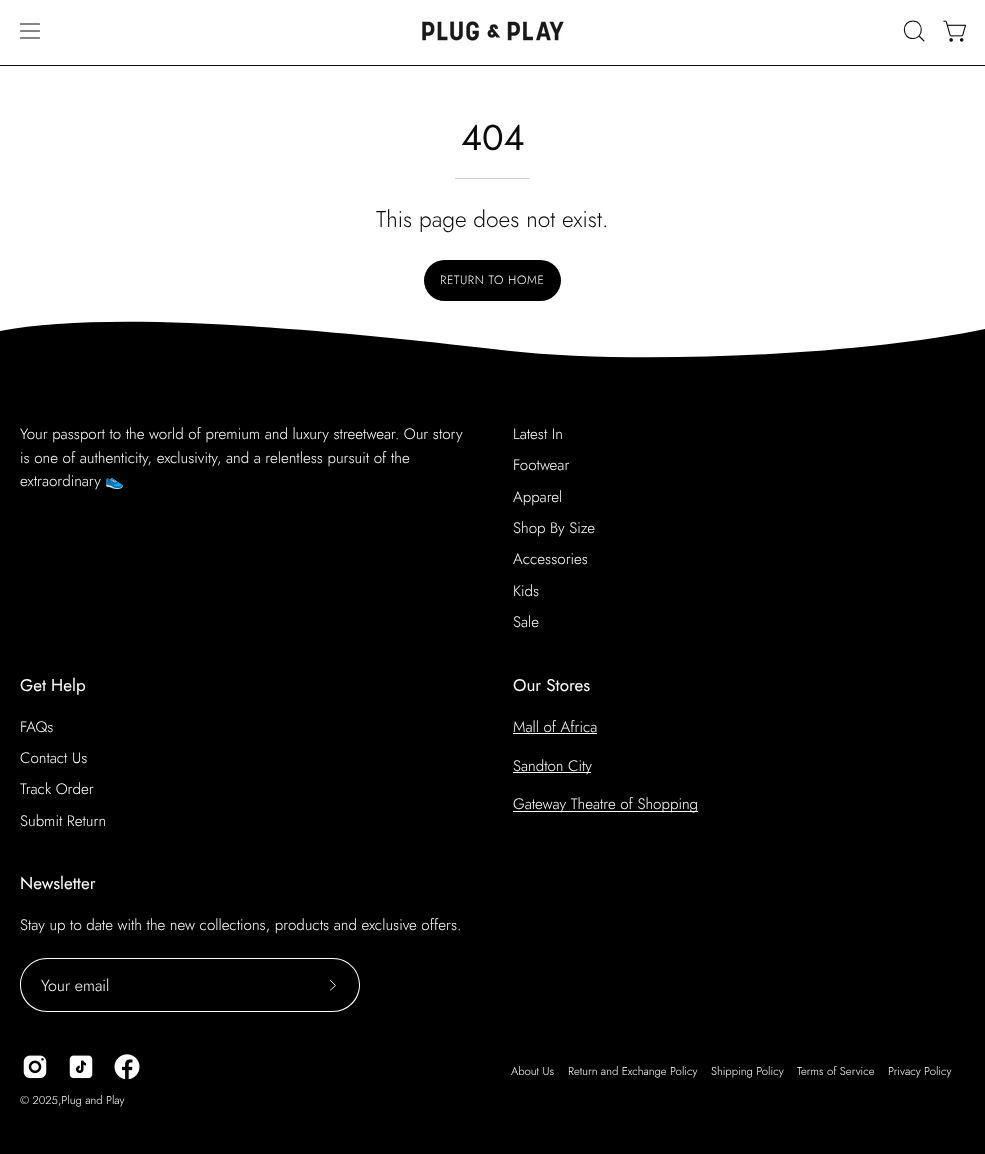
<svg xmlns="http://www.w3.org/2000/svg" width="985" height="1154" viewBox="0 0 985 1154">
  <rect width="100%" height="100%" fill="#000"/>
  <path d="M0 0h985v65H0z" fill="#fff"/>
  <path d="M20.5 31H39.5M20.5 24H39.5M20.5 38H39.5" fill="none" stroke="#0b0b0b" stroke-width="1.2" stroke-linecap="round" stroke-linejoin="round"/>
  <image x="422" y="21" width="142" height="20" href="img/1.png"/>
  <path d="M913 38.5C924 38.5 924 21 913 21C901.5 21 901.5 38.5 913 38.5ZM919 36L924 41" fill="none" stroke="#0b0b0b" stroke-width="1.1" stroke-linecap="round" stroke-linejoin="round"/>
  <image x="943" y="20" width="23" height="22" href="img/2.png"/>
  <path d="M0 65h985v1H0z" fill="#0b0b0b"/>
  <path d="M0 66h985v292H0z" fill="#fff"/>
  <path d="M455 178h75v1H455z" fill="#d3d3d3"/>
  <rect x="424" y="260" width="137" height="41" rx="20.5" fill="#000"/>
  <path d="M0 331C113 309 338 331 493 349C619 366 858 356 985 329V379H0" fill="#000"/>
  <path d="M513 733h84v1H513z" fill="#fff"/>
  <path d="M513 772h78v1H513z" fill="#fff"/>
  <path d="M513 811h185v1H513z" fill="#fff"/>
  <path d="M47 958H306V1012H47C32 1012 20 1000 20 985C20 970 32 958 47 958ZM47 959H306V1011H47C33 1011 21 999 21 985C21 970 33 959 47 959Z" fill="#fff" fill-rule="evenodd"/>
  <path d="M306 958H333C348 958 360 970 360 985C360 1000 348 1012 333 1012H306ZM306 959H333C347 959 359 970 359 985C359 999 347 1011 333 1011H306Z" fill="#fff" fill-rule="evenodd"/>
  <path d="M330.5 980.5L335.5 985.5L330.5 990" fill="none" stroke="#fff" stroke-width="0.9" stroke-linecap="round" stroke-linejoin="round"/>
  <image x="23" y="1055" width="24" height="24" href="img/3.png"/>
  <image x="69" y="1055" width="24" height="24" href="img/4.png"/>
  <image x="114" y="1054" width="26" height="26" href="img/5.png"/>
  <text x="461" y="150" font-family="Jost" font-size="36" fill="#0b0b0b">404</text>
  <text x="376" y="227" font-family="Jost" font-size="22.75" font-weight="300" fill="#0b0b0b">This page does not exist.</text>
  <text x="440" y="284" font-family="Jost" font-size="12" font-weight="300" letter-spacing="0.6" fill="#fff">RETURN TO HOME</text>
  <g font-family="Jost" font-size="15.2" font-weight="300" fill="#fff">
    <text x="20" y="439">Your passport to the world of premium and luxury streetwear. Our story</text>
    <text x="20" y="463">is one of authenticity, exclusivity, and a relentless pursuit of the</text>
    <text x="20" y="486">extraordinary</text>
  </g>
  <text x="105" y="486" font-family="Noto Color Emoji" font-size="15.2" fill="#fff">👟</text>
  <g font-family="Jost" font-size="15.2" font-weight="300" fill="#fff">
    <text x="513" y="439">Latest In</text>
    <text x="513" y="470">Footwear</text>
    <text x="513" y="502">Apparel</text>
    <text x="513" y="533">Shop By Size</text>
    <text x="513" y="564">Accessories</text>
    <text x="513" y="596">Kids</text>
    <text x="513" y="627">Sale</text>
  </g>
  <text x="20" y="691" font-family="Jost" font-size="17" fill="#fff">Get Help</text>
  <g font-family="Jost" font-size="15.2" font-weight="300" fill="#fff">
    <text x="20" y="732">FAQs</text>
    <text x="20" y="763">Contact Us</text>
    <text x="20" y="794">Track Order</text>
    <text x="20" y="826">Submit Return</text>
  </g>
  <text x="513" y="691" font-family="Jost" font-size="17" fill="#fff">Our Stores</text>
  <g font-family="Jost" font-size="15.2" font-weight="300" fill="#fff">
    <text x="513" y="732">Mall of Africa</text>
    <text x="513" y="771">Sandton City</text>
    <text x="513" y="809">Gateway Theatre of Shopping</text>
  </g>
  <text x="20" y="889" font-family="Jost" font-size="17" fill="#fff">Newsletter</text>
  <text x="20" y="930" font-family="Jost" font-size="15.2" font-weight="300" fill="#fff">Stay up to date with the new collections, products and exclusive offers.</text>
  <text x="41" y="991" font-family="Jost" font-size="16" font-weight="300" fill="#fff">Your email</text>
  <g font-family="Jost" font-size="11.4" font-weight="300" fill="#fff">
    <text x="511" y="1075">About Us</text>
    <text x="568" y="1075">Return and Exchange Policy</text>
    <text x="711" y="1075">Shipping Policy</text>
    <text x="797" y="1075">Terms of Service</text>
    <text x="888" y="1075">Privacy Policy</text>
    <text x="20" y="1104">© 2025,Plug and Play</text>
  </g>
</svg>
